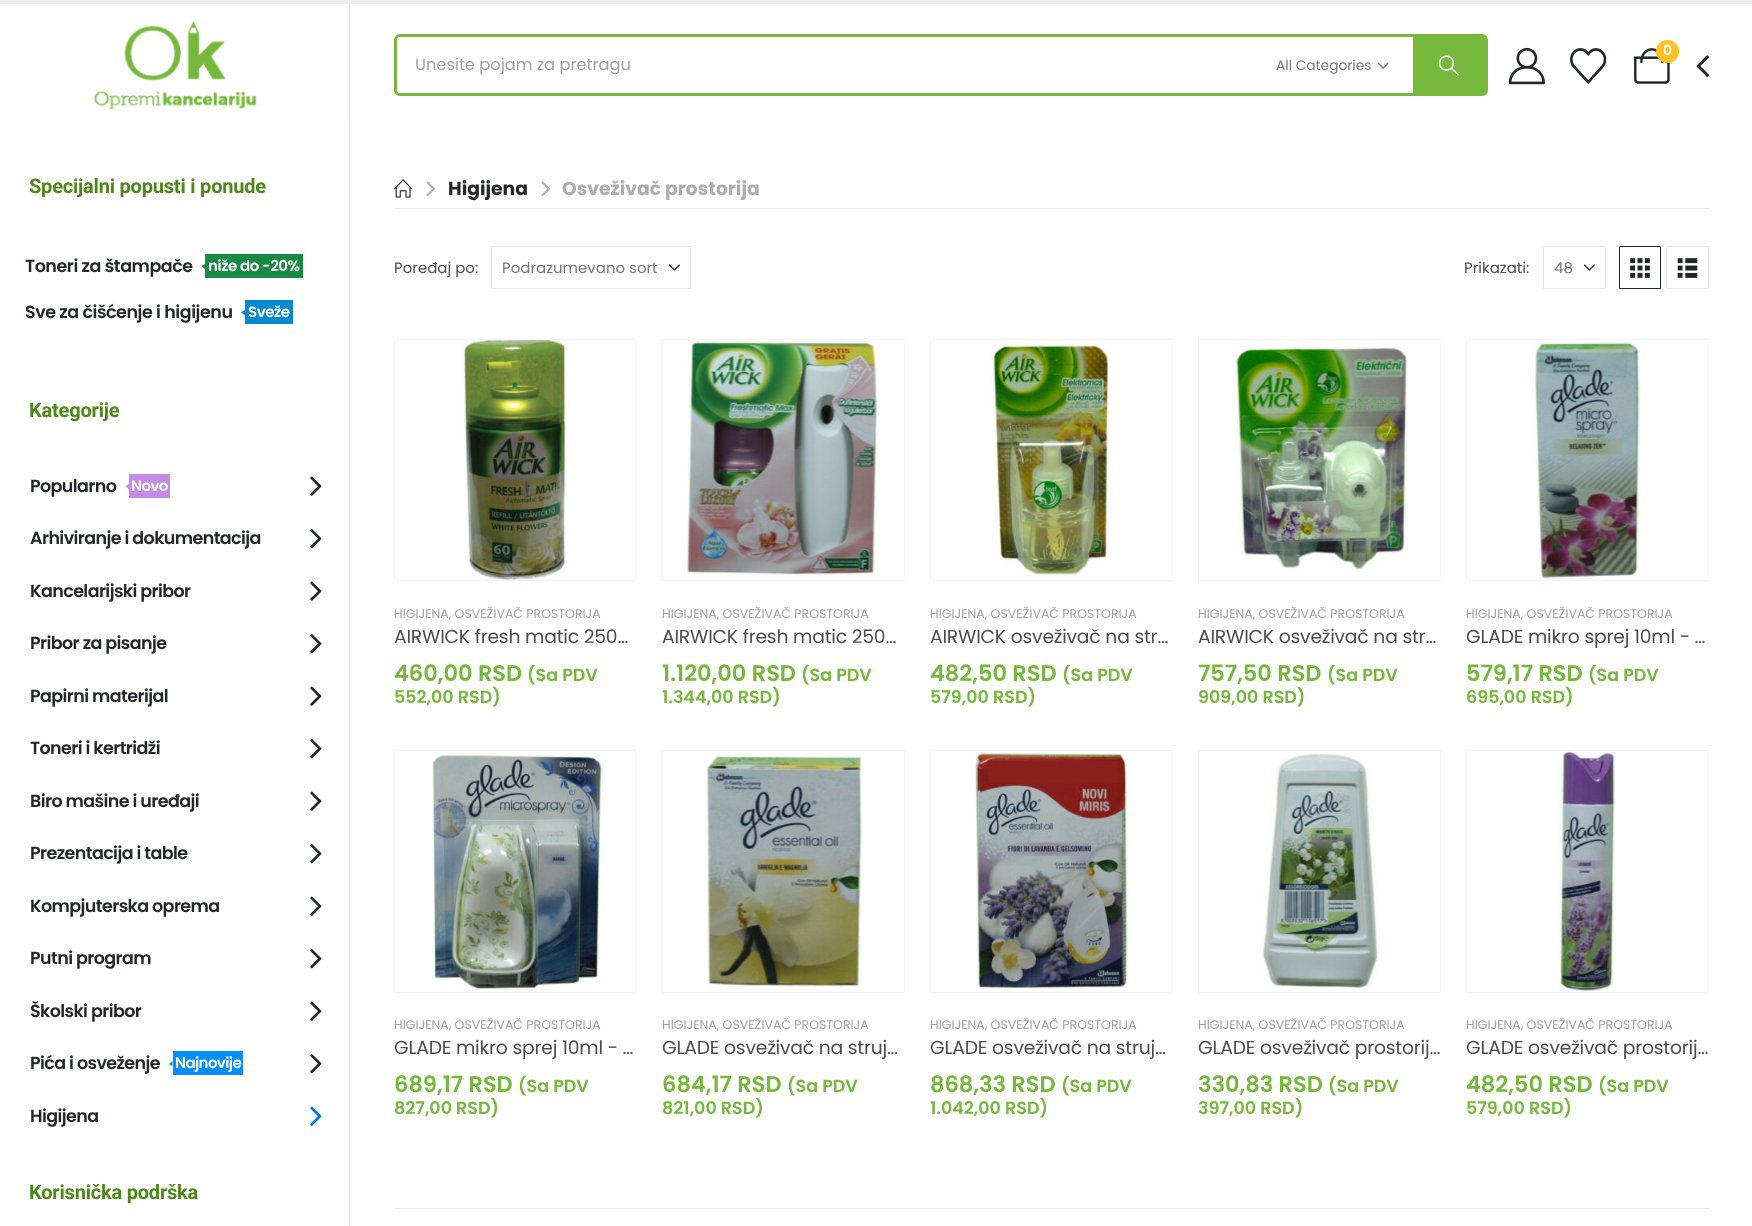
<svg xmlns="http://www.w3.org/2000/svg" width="1752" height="1226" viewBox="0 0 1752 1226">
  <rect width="100%" height="100%" fill="#fff"/>
  <path d="M0 0h1752v4H0z" fill="#ededed"/>
  <path d="M349 4h1v122H349z" fill="#e1e1e1"/>
  <image x="93" y="21" width="164" height="89" href="img/1.png"/>
  <rect x="395.5" y="35.5" width="1091" height="59" rx="4.5" fill="none" stroke="#75b83b" stroke-width="3"/>
  <image x="1377" y="62" width="12" height="7" href="img/2.png"/>
  <path d="M1413 37h72v56H1413z" fill="#75b83b"/>
  <image x="1438" y="55" width="21" height="21" href="img/3.png"/>
  <image x="1508" y="47" width="37" height="38" href="img/4.png"/>
  <image x="1570" y="48" width="37" height="37" href="img/5.png"/>
  <image x="1634" y="48" width="36" height="36" href="img/6.png"/>
  <circle cx="1667.5" cy="51.5" r="11.5" fill="#ffc220"/>
  <image x="1696" y="55" width="13" height="22" href="img/7.png"/>
  <path d="M349 126h1v1100H349z" fill="#e7e7e7"/>
  <path d="M205 254h98v24H205z" fill="#178a43"/>
  <path d="M205 264V269L201 266Z" fill="#178a43"/>
  <path d="M245 300h48v24H245z" fill="#0489d1"/>
  <path d="M245 310V315L241 312.5Z" fill="#0489d1"/>
  <path d="M129 474h41v24H129z" fill="#c589e8"/>
  <path d="M129 484V489L125 486Z" fill="#c589e8"/>
  <image x="310" y="476" width="12" height="20" href="img/8.png"/>
  <image x="310" y="529" width="12" height="20" href="img/9.png"/>
  <image x="310" y="581" width="12" height="20" href="img/8.png"/>
  <image x="310" y="634" width="12" height="20" href="img/9.png"/>
  <image x="310" y="686" width="12" height="20" href="img/8.png"/>
  <image x="310" y="739" width="12" height="20" href="img/9.png"/>
  <image x="310" y="791" width="12" height="20" href="img/8.png"/>
  <image x="310" y="844" width="12" height="20" href="img/9.png"/>
  <image x="310" y="896" width="12" height="20" href="img/8.png"/>
  <image x="310" y="949" width="12" height="20" href="img/9.png"/>
  <image x="310" y="1001" width="12" height="20" href="img/8.png"/>
  <path d="M173 1051h70v24H173z" fill="#058ef7"/>
  <path d="M172.5 1061V1066L169 1064Z" fill="#058ef7"/>
  <image x="310" y="1054" width="12" height="20" href="img/9.png"/>
  <image x="310" y="1106" width="12" height="20" href="img/10.png"/>
  <path d="M394 208h1315v1H394z" fill="#e7e7e7"/>
  <image x="393" y="179" width="20" height="19" href="img/11.png"/>
  <image x="426" y="181" width="9" height="16" href="img/12.png"/>
  <image x="541" y="181" width="9" height="16" href="img/12.png"/>
  <image x="668" y="264" width="12" height="7" href="img/13.png"/>
  <path d="M491.5 246.5h199v42H491.5z" fill="none" stroke="#e7e7e7"/>
  <image x="1583" y="264" width="12" height="7" href="img/13.png"/>
  <path d="M1543.5 246.5h62v42H1543.5z" fill="none" stroke="#e7e7e7"/>
  <path d="M1619.5 246.5h41v42H1619.5z" fill="none" stroke="#222529"/>
  <image x="1630" y="258" width="20" height="20" href="img/14.png"/>
  <path d="M1666.5 246.5h42v42H1666.5z" fill="none" stroke="#e7e7e7"/>
  <image x="1677" y="258" width="21" height="20" href="img/15.png"/>
  <path d="M394.5 339.5h241v241H394.5z" fill="none" stroke="#f4f4f4"/>
  <image x="461" y="340" width="107" height="240" href="img/16.png"/>
  <path d="M661.5 339.5h243v241H661.5z" fill="none" stroke="#f4f4f4"/>
  <image x="686" y="340" width="192" height="236" href="img/17.png"/>
  <path d="M930.5 339.5h242v241H930.5z" fill="none" stroke="#f4f4f4"/>
  <image x="990" y="341" width="121" height="236" href="img/18.png"/>
  <path d="M1198.5 339.5h242v241H1198.5z" fill="none" stroke="#f4f4f4"/>
  <image x="1232" y="346" width="176" height="224" href="img/19.png"/>
  <path d="M1466.5 339.5h242v241H1466.5z" fill="none" stroke="#f4f4f4"/>
  <image x="1532" y="340" width="108" height="240" href="img/20.png"/>
  <path d="M394.5 750.5h241v242H394.5z" fill="none" stroke="#f4f4f4"/>
  <image x="432" y="751" width="171" height="239" href="img/21.png"/>
  <path d="M661.5 750.5h243v242H661.5z" fill="none" stroke="#f4f4f4"/>
  <image x="706" y="753" width="156" height="235" href="img/22.png"/>
  <path d="M930.5 750.5h242v242H930.5z" fill="none" stroke="#f4f4f4"/>
  <image x="974" y="751" width="156" height="238" href="img/23.png"/>
  <path d="M1198.5 750.5h242v242H1198.5z" fill="none" stroke="#f4f4f4"/>
  <image x="1262" y="752" width="117" height="236" href="img/24.png"/>
  <path d="M1466.5 750.5h242v242H1466.5z" fill="none" stroke="#f4f4f4"/>
  <image x="1557" y="751" width="58" height="241" href="img/25.png"/>
  <path d="M394 1208h1315v1H394z" fill="#e7e7e7"/>
  <text x="415" y="70" font-family="Poppins" font-size="16.25" fill="#a0a0a0">Unesite pojam za pretragu</text>
  <text x="1276" y="70" font-family="Poppins" font-size="13.75" fill="#777">All Categories</text>
  <text x="1663" y="55" font-family="Poppins" font-size="14" font-weight="600" fill="#fff">0</text>
  <text x="29" y="193" font-family="Roboto" font-size="20" font-weight="bold" letter-spacing="-0.2" fill="#4e881b">Specijalni popusti i ponude</text>
  <text x="25" y="272" font-family="Poppins" font-size="17.5" font-weight="600" letter-spacing="-0.45" fill="#222529">Toneri za štampače</text>
  <text x="208" y="271" font-family="Poppins" font-size="15" font-weight="600" letter-spacing="-0.45" fill="#fff">niže do -20%</text>
  <text x="25" y="318" font-family="Poppins" font-size="17.5" font-weight="600" letter-spacing="-0.45" fill="#222529">Sve za čišćenje i higijenu</text>
  <text x="248" y="317" font-family="Poppins" font-size="15" font-weight="600" letter-spacing="-0.45" fill="#fff">Sveže</text>
  <text x="29" y="417" font-family="Roboto" font-size="20" font-weight="bold" letter-spacing="-0.2" fill="#4e881b">Kategorije</text>
  <text x="30" y="492" font-family="Poppins" font-size="17.5" font-weight="600" letter-spacing="-0.6" fill="#222529">Popularno</text>
  <text x="131" y="491" font-family="Poppins" font-size="15" font-weight="600" letter-spacing="-0.6" fill="#fff">Novo</text>
  <g font-family="Poppins" font-size="17.5" font-weight="600" letter-spacing="-0.6" fill="#222529">
    <text x="30" y="544">Arhiviranje i dokumentacija</text>
    <text x="30" y="597">Kancelarijski pribor</text>
    <text x="30" y="649">Pribor za pisanje</text>
    <text x="30" y="702">Papirni materijal</text>
    <text x="30" y="754">Toneri i kertridži</text>
    <text x="30" y="807">Biro mašine i uređaji</text>
    <text x="30" y="859">Prezentacija i table</text>
    <text x="30" y="912">Kompjuterska oprema</text>
    <text x="30" y="964">Putni program</text>
    <text x="30" y="1017">Školski pribor</text>
    <text x="30" y="1069">Pića i osveženje</text>
  </g>
  <text x="175" y="1068" font-family="Poppins" font-size="15" font-weight="600" letter-spacing="-0.6" fill="#fff">Najnovije</text>
  <text x="30" y="1122" font-family="Poppins" font-size="17.5" font-weight="600" letter-spacing="-0.6" fill="#222529">Higijena</text>
  <text x="29" y="1199" font-family="Roboto" font-size="20" font-weight="bold" letter-spacing="-0.2" fill="#4e881b">Korisnička podrška</text>
  <text x="448" y="195" font-family="Poppins" font-size="18.75" font-weight="bold" fill="#222529">Higijena</text>
  <text x="562" y="195" font-family="Poppins" font-size="18.75" font-weight="bold" fill="#adadad">Osveživač prostorija</text>
  <text x="394" y="273" font-family="Poppins" font-size="15" fill="#4c4c4c">Poređaj po:</text>
  <text x="502" y="273" font-family="Poppins" font-size="15" fill="#777">Podrazumevano sort</text>
  <text x="1464" y="273" font-family="Poppins" font-size="15" fill="#4c4c4c">Prikazati:</text>
  <text x="1554" y="273" font-family="Poppins" font-size="15" fill="#777">48</text>
  <text x="394" y="618" font-family="Poppins" font-size="12.5" fill="#a0a0a0">HIGIJENA, OSVEŽIVAČ PROSTORIJA</text>
  <text x="394" y="643" font-family="Poppins" font-size="18.75" letter-spacing="-0.2" fill="#4c4c4c">AIRWICK fresh matic 250…</text>
  <text x="394" y="681" font-family="Poppins" font-size="22.5" font-weight="600" fill="#75b83b">460,00 RSD</text>
  <g font-family="Poppins" font-size="17.5" font-weight="600" fill="#75b83b">
    <text x="527" y="681">(Sa PDV</text>
    <text x="394" y="703">552,00 RSD)</text>
  </g>
  <text x="662" y="618" font-family="Poppins" font-size="12.5" fill="#a0a0a0">HIGIJENA, OSVEŽIVAČ PROSTORIJA</text>
  <text x="662" y="643" font-family="Poppins" font-size="18.75" letter-spacing="-0.2" fill="#4c4c4c">AIRWICK fresh matic 250…</text>
  <text x="662" y="681" font-family="Poppins" font-size="22.5" font-weight="600" fill="#75b83b">1.120,00 RSD</text>
  <g font-family="Poppins" font-size="17.5" font-weight="600" fill="#75b83b">
    <text x="801" y="681">(Sa PDV</text>
    <text x="662" y="703">1.344,00 RSD)</text>
  </g>
  <text x="930" y="618" font-family="Poppins" font-size="12.5" fill="#a0a0a0">HIGIJENA, OSVEŽIVAČ PROSTORIJA</text>
  <text x="930" y="643" font-family="Poppins" font-size="18.75" letter-spacing="-0.2" fill="#4c4c4c">AIRWICK osveživač na str…</text>
  <text x="930" y="681" font-family="Poppins" font-size="22.5" font-weight="600" fill="#75b83b">482,50 RSD</text>
  <g font-family="Poppins" font-size="17.5" font-weight="600" fill="#75b83b">
    <text x="1062" y="681">(Sa PDV</text>
    <text x="930" y="703">579,00 RSD)</text>
  </g>
  <text x="1198" y="618" font-family="Poppins" font-size="12.5" fill="#a0a0a0">HIGIJENA, OSVEŽIVAČ PROSTORIJA</text>
  <text x="1198" y="643" font-family="Poppins" font-size="18.75" letter-spacing="-0.2" fill="#4c4c4c">AIRWICK osveživač na str…</text>
  <text x="1198" y="681" font-family="Poppins" font-size="22.5" font-weight="600" fill="#75b83b">757,50 RSD</text>
  <g font-family="Poppins" font-size="17.5" font-weight="600" fill="#75b83b">
    <text x="1327" y="681">(Sa PDV</text>
    <text x="1198" y="703">909,00 RSD)</text>
  </g>
  <text x="1466" y="618" font-family="Poppins" font-size="12.5" fill="#a0a0a0">HIGIJENA, OSVEŽIVAČ PROSTORIJA</text>
  <text x="1466" y="643" font-family="Poppins" font-size="18.75" letter-spacing="-0.2" fill="#4c4c4c">GLADE mikro sprej 10ml - …</text>
  <text x="1466" y="681" font-family="Poppins" font-size="22.5" font-weight="600" fill="#75b83b">579,17 RSD</text>
  <g font-family="Poppins" font-size="17.5" font-weight="600" fill="#75b83b">
    <text x="1588" y="681">(Sa PDV</text>
    <text x="1466" y="703">695,00 RSD)</text>
  </g>
  <text x="394" y="1029" font-family="Poppins" font-size="12.5" fill="#a0a0a0">HIGIJENA, OSVEŽIVAČ PROSTORIJA</text>
  <text x="394" y="1054" font-family="Poppins" font-size="18.75" letter-spacing="-0.2" fill="#4c4c4c">GLADE mikro sprej 10ml - …</text>
  <text x="394" y="1092" font-family="Poppins" font-size="22.5" font-weight="600" fill="#75b83b">689,17 RSD</text>
  <g font-family="Poppins" font-size="17.5" font-weight="600" fill="#75b83b">
    <text x="518" y="1092">(Sa PDV</text>
    <text x="394" y="1114">827,00 RSD)</text>
  </g>
  <text x="662" y="1029" font-family="Poppins" font-size="12.5" fill="#a0a0a0">HIGIJENA, OSVEŽIVAČ PROSTORIJA</text>
  <text x="662" y="1054" font-family="Poppins" font-size="18.75" letter-spacing="-0.2" fill="#4c4c4c">GLADE osveživač na struj…</text>
  <text x="662" y="1092" font-family="Poppins" font-size="22.5" font-weight="600" fill="#75b83b">684,17 RSD</text>
  <g font-family="Poppins" font-size="17.5" font-weight="600" fill="#75b83b">
    <text x="787" y="1092">(Sa PDV</text>
    <text x="662" y="1114">821,00 RSD)</text>
  </g>
  <text x="930" y="1029" font-family="Poppins" font-size="12.5" fill="#a0a0a0">HIGIJENA, OSVEŽIVAČ PROSTORIJA</text>
  <text x="930" y="1054" font-family="Poppins" font-size="18.75" letter-spacing="-0.2" fill="#4c4c4c">GLADE osveživač na struj…</text>
  <text x="930" y="1092" font-family="Poppins" font-size="22.5" font-weight="600" fill="#75b83b">868,33 RSD</text>
  <g font-family="Poppins" font-size="17.5" font-weight="600" fill="#75b83b">
    <text x="1061" y="1092">(Sa PDV</text>
    <text x="930" y="1114">1.042,00 RSD)</text>
  </g>
  <text x="1198" y="1029" font-family="Poppins" font-size="12.5" fill="#a0a0a0">HIGIJENA, OSVEŽIVAČ PROSTORIJA</text>
  <text x="1198" y="1054" font-family="Poppins" font-size="18.75" letter-spacing="-0.2" fill="#4c4c4c">GLADE osveživač prostorij…</text>
  <text x="1198" y="1092" font-family="Poppins" font-size="22.5" font-weight="600" fill="#75b83b">330,83 RSD</text>
  <g font-family="Poppins" font-size="17.5" font-weight="600" fill="#75b83b">
    <text x="1328" y="1092">(Sa PDV</text>
    <text x="1198" y="1114">397,00 RSD)</text>
  </g>
  <text x="1466" y="1029" font-family="Poppins" font-size="12.5" fill="#a0a0a0">HIGIJENA, OSVEŽIVAČ PROSTORIJA</text>
  <text x="1466" y="1054" font-family="Poppins" font-size="18.75" letter-spacing="-0.2" fill="#4c4c4c">GLADE osveživač prostorij…</text>
  <text x="1466" y="1092" font-family="Poppins" font-size="22.5" font-weight="600" fill="#75b83b">482,50 RSD</text>
  <g font-family="Poppins" font-size="17.5" font-weight="600" fill="#75b83b">
    <text x="1598" y="1092">(Sa PDV</text>
    <text x="1466" y="1114">579,00 RSD)</text>
  </g>
</svg>
